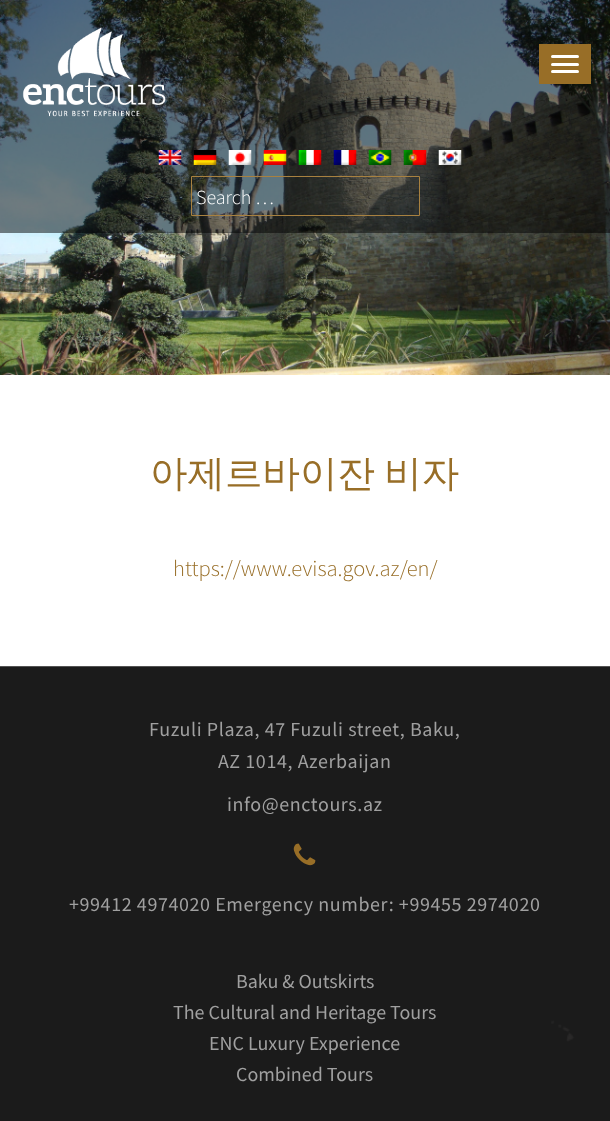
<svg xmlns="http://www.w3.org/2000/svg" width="610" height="1121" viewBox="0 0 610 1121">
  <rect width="100%" height="100%" fill="#fff"/>
  <image x="0" y="0" width="610" height="375" href="img/11.png"/>
  <path d="M0 0h610v233H0z" fill="#00000080"/>
  <image x="22" y="27" width="144" height="90" href="img/1.png"/>
  <path d="M539 44h52v40H539z" fill="#986e27"/>
  <rect x="551" y="55" width="28" height="3" rx="1.5" fill="#fff"/>
  <rect x="551" y="63" width="28" height="3" rx="1.5" fill="#fff"/>
  <rect x="551" y="70" width="28" height="3" rx="1.5" fill="#fff"/>
  <image x="158" y="150" width="24" height="15" href="img/2.png"/>
  <image x="193" y="150" width="24" height="15" href="img/3.png"/>
  <image x="228" y="150" width="24" height="15" href="img/4.png"/>
  <image x="263" y="150" width="24" height="15" href="img/5.png"/>
  <image x="298" y="150" width="24" height="15" href="img/6.png"/>
  <image x="333" y="150" width="24" height="15" href="img/7.png"/>
  <image x="368" y="150" width="24" height="15" href="img/8.png"/>
  <image x="403" y="150" width="24" height="15" href="img/9.png"/>
  <image x="438" y="150" width="24" height="15" href="img/10.png"/>
  <path d="M191.5 176.5h228v39H191.5z" fill="none" stroke="#a88140"/>
  <image x="0" y="666" width="610" height="455" href="img/12.png"/>
  <image x="293" y="843" width="23" height="23" href="img/13.png"/>
  <text x="196" y="204" font-family="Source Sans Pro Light" font-size="20" font-weight="300" fill="#fff">Search …</text>
  <text x="150" y="486" word-spacing="-2" font-family="WenQuanYi Zen Hei" font-size="37.5" font-weight="500" fill="#986e27">아제르바이잔 비자</text>
  <text x="173" y="576" font-family="Source Sans Pro Light" font-size="22.5" font-weight="300" fill="#986e27">https://www.evisa.gov.az/en/</text>
  <g font-family="Source Sans Pro" font-size="20" letter-spacing="0.6" fill="#a0a0a0">
    <text x="149" y="736">Fuzuli Plaza, 47 Fuzuli street, Baku,</text>
    <text x="218" y="768">AZ 1014, Azerbaijan</text>
    <text x="227" y="811">info@enctours.az</text>
    <text x="69" y="911">+99412 4974020 Emergency number: +99455 2974020</text>
  </g>
  <g font-family="Source Sans Pro" font-size="20" fill="#a0a0a0">
    <text x="236" y="988">Baku &amp; Outskirts</text>
    <text x="173" y="1019">The Cultural and Heritage Tours</text>
    <text x="209" y="1050">ENC Luxury Experience</text>
    <text x="236" y="1081">Combined Tours</text>
  </g>
</svg>
